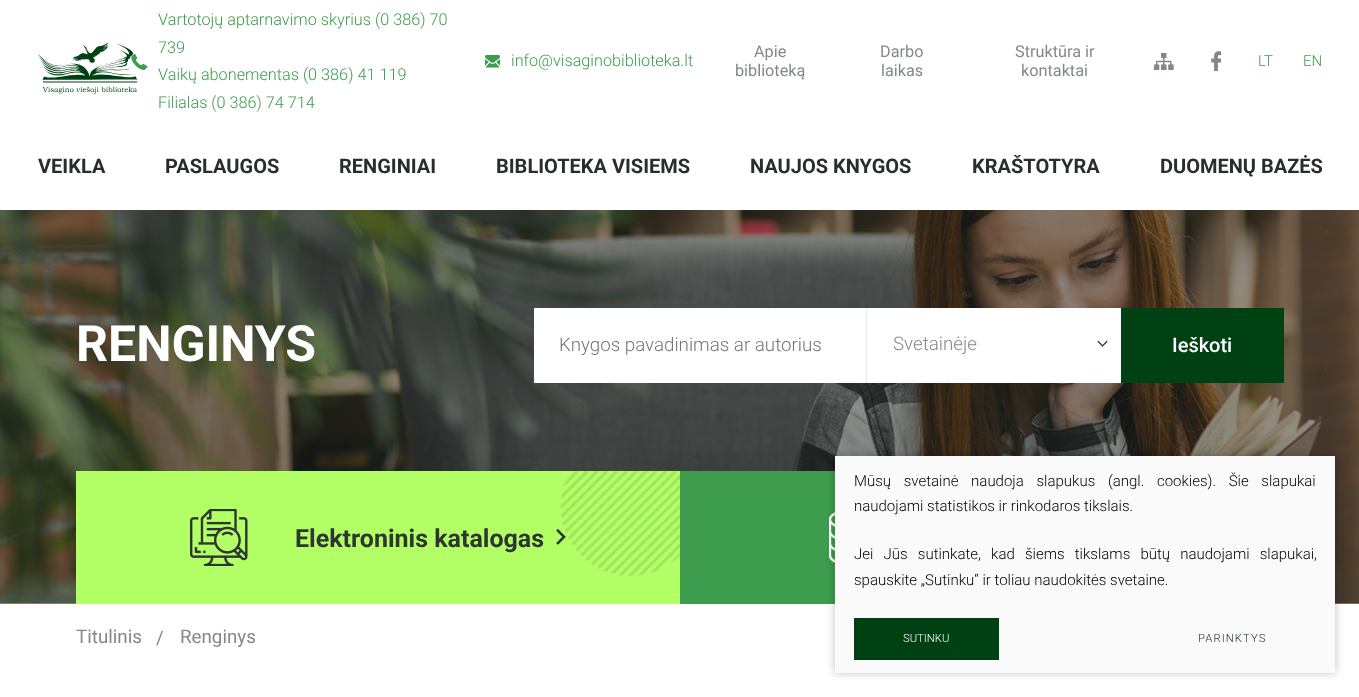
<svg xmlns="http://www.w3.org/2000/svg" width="1359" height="697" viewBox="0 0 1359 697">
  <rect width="100%" height="100%" fill="#fff"/>
  <image x="131" y="54" width="17" height="16" href="img/1.png"/>
  <image x="485" y="55" width="15" height="13" href="img/2.png"/>
  <image x="1154" y="53" width="20" height="17" href="img/3.png"/>
  <image x="1211" y="51" width="10" height="20" href="img/4.png"/>
  <image x="38" y="43" width="100" height="51" href="img/5.png"/>
  <image x="0" y="210" width="1359" height="394" href="img/6.png"/>
  <path d="M534 308h332v75H534z" fill="#fff"/>
  <path d="M867 308h254v75H867z" fill="#fff"/>
  <path d="M866 308h1v75H866z" fill="#eaeaea"/>
  <image x="1097" y="340" width="11" height="7" href="img/7.png"/>
  <path d="M1121 308h163v75H1121z" fill="#004114"/>
  <path d="M76 471h604v133H76z" fill="#b3ff66"/>
  <image x="190" y="509" width="58" height="57" href="img/8.png"/>
  <image x="556" y="529" width="10" height="16" href="img/10.png"/>
  <image x="560" y="471" width="120" height="106" href="img/9.png"/>
  <path d="M680 471h155v133H680z" fill="#3d9c4d"/>
  <image x="829" y="512" width="6" height="51" href="img/11.png"/>
  <path d="M835 456h500v217H835z" fill="#00000040" filter="blur(4.5px)"/>
  <path d="M835 456h500v217H835z" fill="#fafafa"/>
  <path d="M854 618h145v42H854z" fill="#004114"/>
  <g font-family="Roboto" font-size="16.25" font-weight="300" fill="#3d9c4d">
    <text x="158" y="25">Vartotojų aptarnavimo skyrius (0 386) 70</text>
    <text x="158" y="53">739</text>
    <text x="158" y="80">Vaikų abonementas (0 386) 41 119</text>
    <text x="158" y="108">Filialas (0 386) 74 714</text>
    <text x="511" y="66">info@visaginobiblioteka.lt</text>
  </g>
  <g font-family="Roboto" font-size="16.25" fill="#848986">
    <text x="754" y="57">Apie</text>
    <text x="735" y="76">biblioteką</text>
    <text x="880" y="57">Darbo</text>
    <text x="881" y="76">laikas</text>
    <text x="1015" y="57">Struktūra ir</text>
    <text x="1021" y="76">kontaktai</text>
  </g>
  <g font-family="Roboto" font-size="15" font-weight="300" fill="#3d9c4d">
    <text x="1258" y="66">LT</text>
    <text x="1303" y="66">EN</text>
  </g>
  <g font-family="Roboto" font-size="20" font-weight="bold" fill="#272f2a">
    <text x="38" y="173">VEIKLA</text>
    <text x="165" y="173">PASLAUGOS</text>
    <text x="339" y="173">RENGINIAI</text>
    <text x="496" y="173">BIBLIOTEKA VISIEMS</text>
    <text x="750" y="173">NAUJOS KNYGOS</text>
    <text x="972" y="173">KRAŠTOTYRA</text>
    <text x="1160" y="173">DUOMENŲ BAZĖS</text>
  </g>
  <text x="76" y="361" font-family="Roboto" font-size="50" font-weight="bold" fill="#fff">RENGINYS</text>
  <text x="559" y="351" font-family="Roboto" font-size="18.75" font-weight="300" fill="#757575">Knygos pavadinimas ar autorius</text>
  <text x="893" y="350" font-family="Roboto" font-size="18.75" font-weight="300" fill="#848986">Svetainėje</text>
  <text x="1172" y="352" font-family="Roboto" font-size="20" font-weight="500" fill="#fff">Ieškoti</text>
  <text x="295" y="547" font-family="Roboto" font-size="25" font-weight="bold" fill="#2d3630">Elektroninis katalogas</text>
  <g font-family="Roboto" font-size="18.75" fill="#848986">
    <text x="76" y="643">Titulinis</text>
    <text x="156" y="644">/</text>
    <text x="180" y="643">Renginys</text>
  </g>
  <g font-family="Roboto" font-size="15" font-weight="300" fill="#000">
    <text x="854" y="486" word-spacing="9">Mūsų svetainė naudoja slapukus (angl. cookies). Šie slapukai</text>
    <text x="854" y="511">naudojami statistikos ir rinkodaros tikslais.</text>
    <text x="854" y="559" word-spacing="6.5">Jei Jūs sutinkate, kad šiems tikslams būtų naudojami slapukai,</text>
    <text x="854" y="585">spauskite „Sutinku“ ir toliau naudokitės svetaine.</text>
  </g>
  <text x="903" y="642" font-family="Roboto" font-size="11.25" font-weight="300" fill="#fff">SUTINKU</text>
  <text x="1198" y="642" font-family="Roboto" font-size="11.25" font-weight="300" letter-spacing="1.1" fill="#263238">PARINKTYS</text>
</svg>
